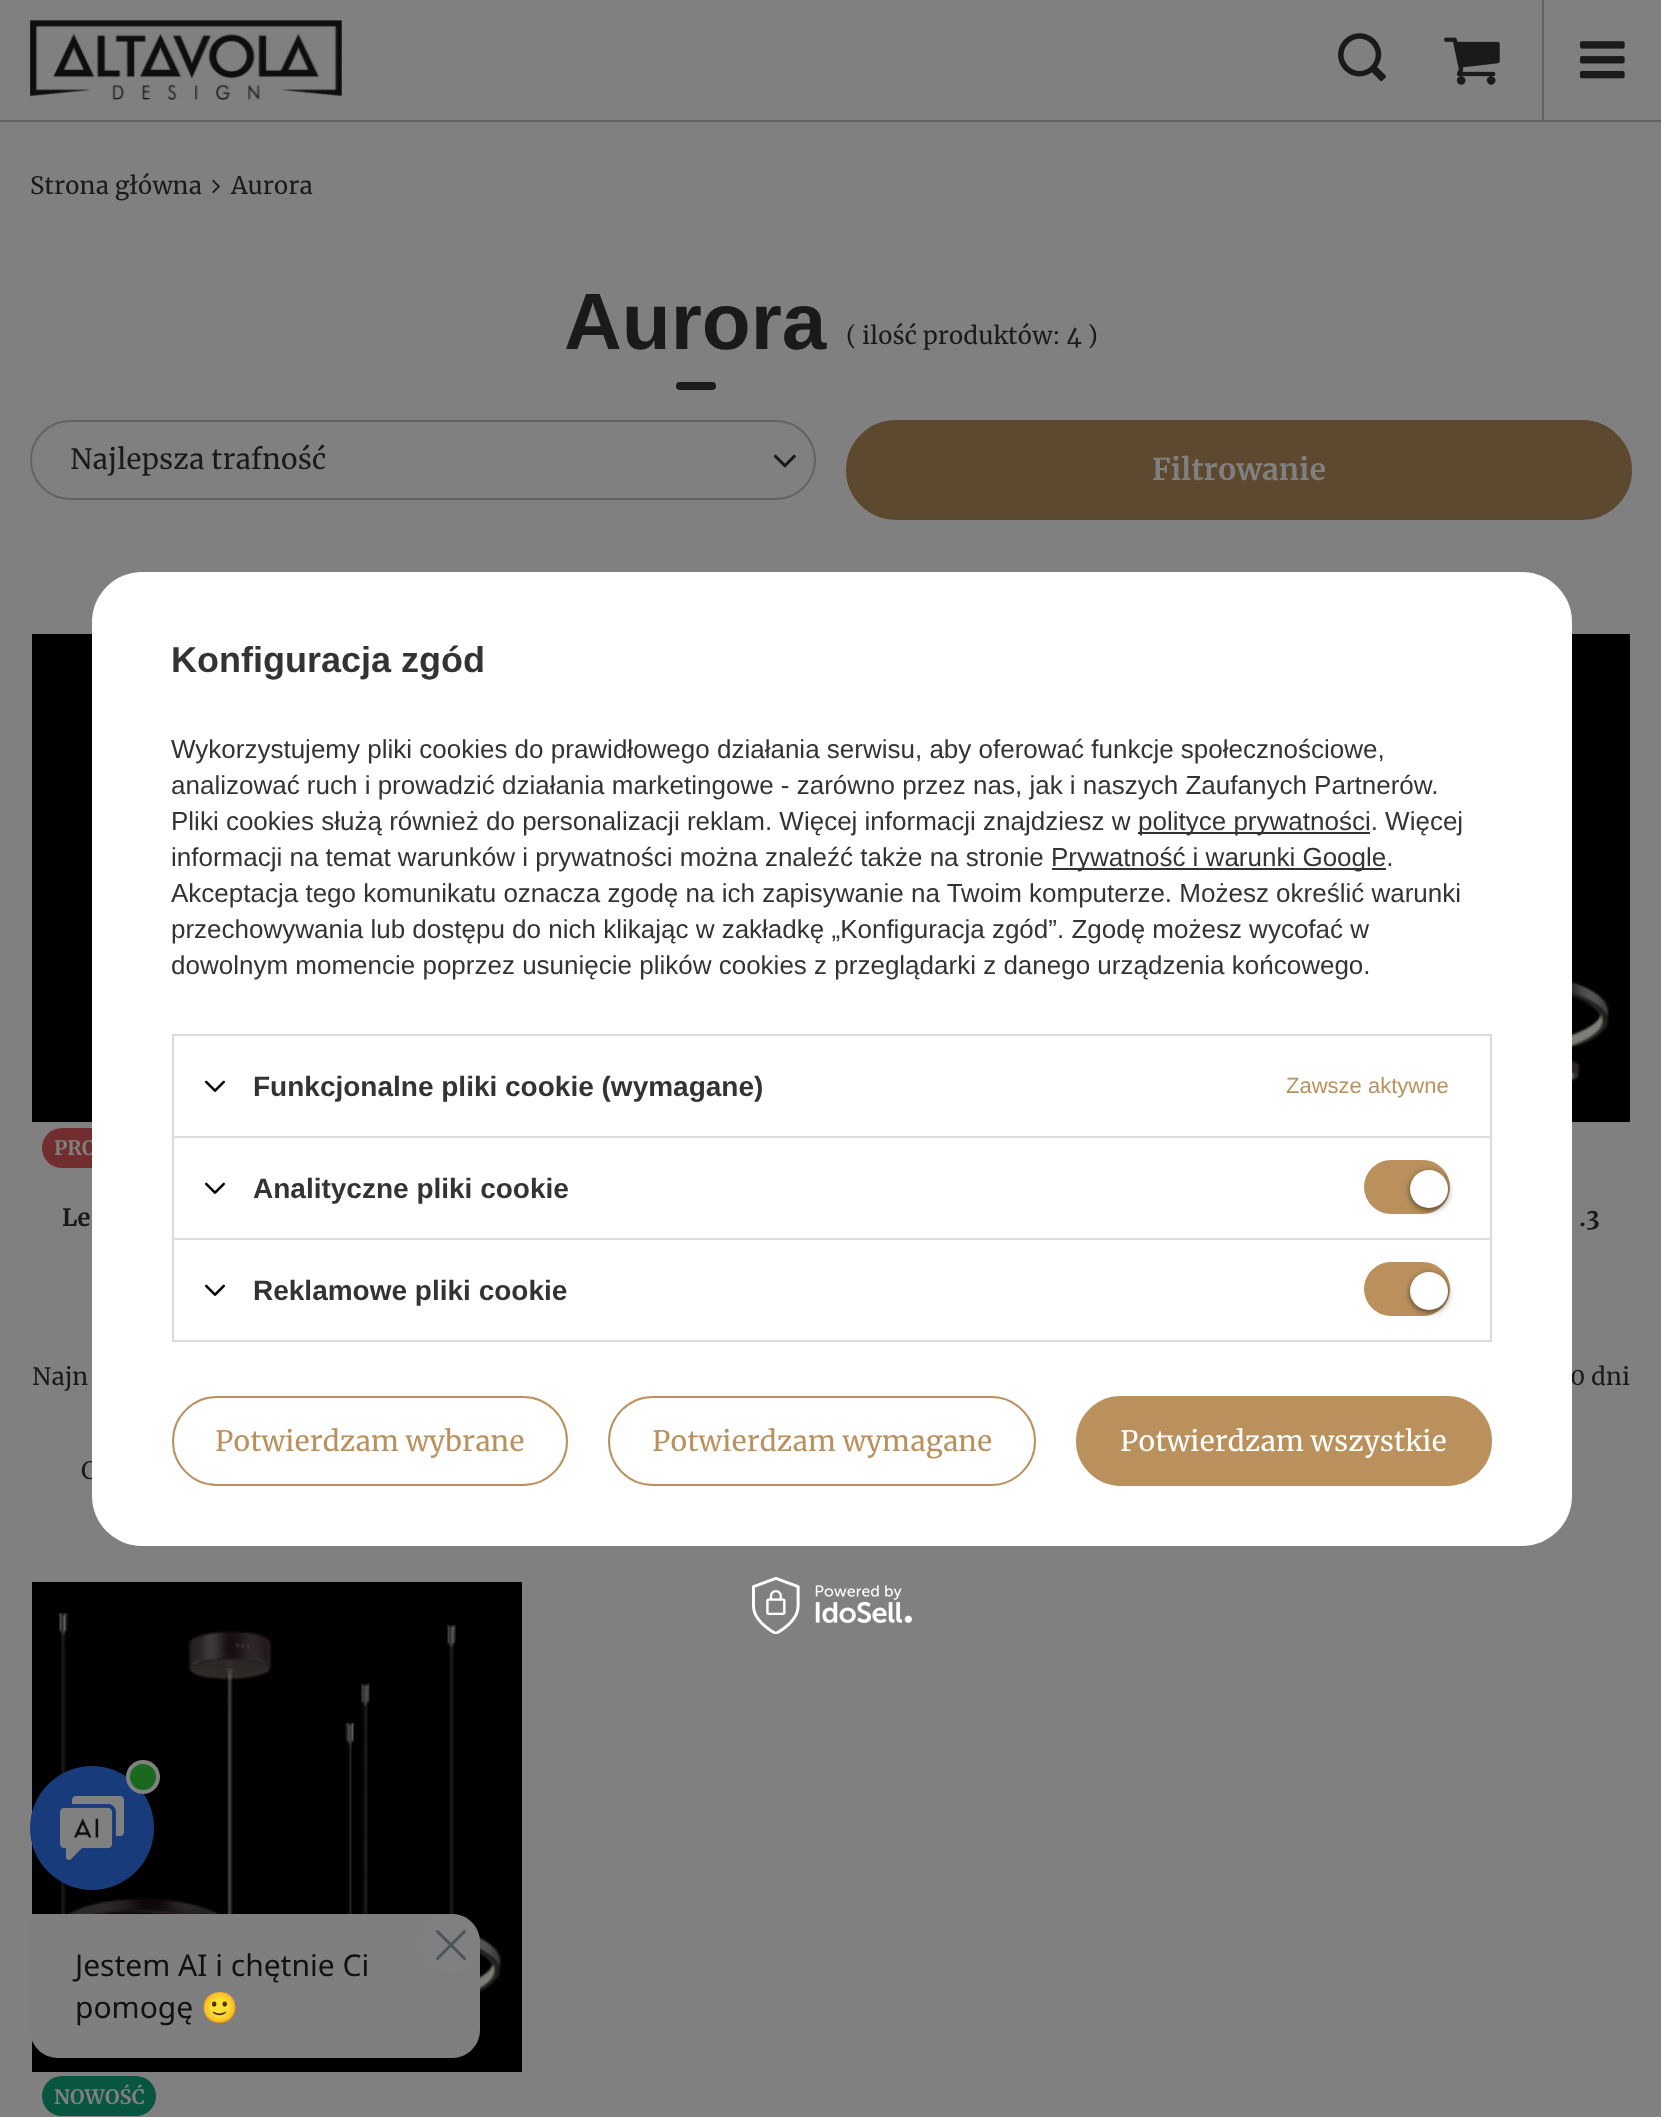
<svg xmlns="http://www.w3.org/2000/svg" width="1661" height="2117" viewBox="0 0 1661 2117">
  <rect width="100%" height="100%" fill="#808080"/>
  <path d="M0 120h1661v2H0z" fill="#626464"/>
  <image x="30" y="20" width="312" height="80" href="img/1.png"/>
  <image x="1338" y="33" width="48" height="49" href="img/2.png"/>
  <image x="1444" y="37" width="56" height="48" href="img/3.png"/>
  <path d="M1542 0h2v120H1542z" fill="#626464"/>
  <image x="1580" y="41" width="45" height="38" href="img/4.png"/>
  <image x="212" y="179" width="8" height="15" href="img/5.png"/>
  <rect x="676" y="382" width="40" height="8" rx="4" fill="#1a1a1a"/>
  <rect x="31" y="421" width="784" height="78" rx="39" fill="none" stroke="#626464" stroke-width="2"/>
  <image x="773" y="454" width="23" height="14" href="img/6.png"/>
  <rect x="847" y="421" width="784" height="98" rx="49" fill="#5d492f" stroke="#5d492f" stroke-width="2"/>
  <image x="32" y="634" width="60" height="488" href="img/7.png"/>
  <rect x="42" y="1128" width="136" height="40" rx="20" fill="#722e2e"/>
  <image x="1572" y="634" width="58" height="488" href="img/8.png"/>
  <image x="32" y="1582" width="490" height="490" href="img/9.png"/>
  <rect x="42" y="2076" width="114" height="40" rx="20" fill="#085641"/>
  <image x="752" y="1577" width="160" height="57" href="img/11.png"/>
  <circle cx="92" cy="1828" r="62" fill="#183b7c"/>
  <circle cx="143" cy="1777" r="15" fill="#1b681f" stroke="#808080" stroke-width="4"/>
  <image x="60" y="1796" width="64" height="64" href="img/12.png"/>
  <path d="M30 1914H452C467.5 1914 480 1926.5 480 1942V2030C480 2045.5 467.5 2058 452 2058H58C42.5 2058 30 2045.5 30 2030Z" fill="#7f7f7f"/>
  <circle cx="450" cy="1944" r="30" fill="#808080"/>
  <path d="M464.5 1931.5L437.5 1958.5M437.5 1931.5L464.5 1958.5" fill="none" stroke="#49535a" stroke-width="2.9" stroke-linecap="round" stroke-linejoin="round"/>
  <g font-family="Merriweather" font-size="24" fill="#1a1a1a">
    <text x="30" y="194">Strona główna</text>
    <text x="231" y="194">Aurora</text>
  </g>
  <text x="564" y="349" font-family="Liberation Sans" font-size="80" font-weight="bold" fill="#1a1a1a">Aurora</text>
  <text x="846" y="344" font-family="Merriweather" font-size="24" fill="#1a1a1a">( ilość produktów: 4 )</text>
  <text x="70" y="469" font-family="Merriweather" font-size="28" fill="#1a1a1a">Najlepsza trafność</text>
  <text x="1152" y="480" font-family="Merriweather" font-size="30" font-weight="bold" fill="#808080">Filtrowanie</text>
  <text x="54" y="1155" font-family="Merriweather" font-size="20" font-weight="bold" fill="#808080">PRO</text>
  <text x="62" y="1226" font-family="Merriweather" font-size="24" font-weight="bold" fill="#1a1a1a">Le</text>
  <g font-family="Merriweather" font-size="24" fill="#1a1a1a">
    <text x="32" y="1385">Najn</text>
    <text x="81" y="1479">C</text>
  </g>
  <text x="1579" y="1226" font-family="Merriweather" font-size="24" font-weight="bold" fill="#1a1a1a">.3</text>
  <text x="1570" y="1385" font-family="Merriweather" font-size="24" fill="#1a1a1a">0 dni</text>
  <text x="54" y="2104" font-family="Merriweather" font-size="20" font-weight="bold" fill="#808080">NOWOŚĆ</text>
  <rect x="92" y="572" width="1480" height="974" rx="50" fill="#fff"/>
  <text x="171" y="672" font-family="Liberation Sans" font-size="36" font-weight="bold" fill="#333">Konfiguracja zgód</text>
  <g font-family="Liberation Sans" font-size="26" fill="#333">
    <text x="171" y="758">Wykorzystujemy pliki cookies do prawidłowego działania serwisu, aby oferować funkcje społecznościowe,</text>
    <text x="171" y="794">analizować ruch i prowadzić działania marketingowe - zarówno przez nas, jak i naszych Zaufanych Partnerów.</text>
    <text x="171" y="830">Pliki cookies służą również do personalizacji reklam. Więcej informacji znajdziesz w</text>
  </g>
  <path d="M1138 832h232v2H1138z" fill="#333"/>
  <g font-family="Liberation Sans" font-size="26" fill="#333">
    <text x="1138" y="830">polityce prywatności. Więcej</text>
    <text x="171" y="866">informacji na temat warunków i prywatności można znaleźć także na stronie</text>
  </g>
  <path d="M1052 868h334v2H1052z" fill="#333"/>
  <g font-family="Liberation Sans" font-size="26" fill="#333">
    <text x="1051" y="866">Prywatność i warunki Google.</text>
    <text x="171" y="902">Akceptacja tego komunikatu oznacza zgodę na ich zapisywanie na Twoim komputerze. Możesz określić warunki</text>
    <text x="171" y="938">przechowywania lub dostępu do nich klikając w zakładkę „Konfiguracja zgód”. Zgodę możesz wycofać w</text>
    <text x="171" y="974">dowolnym momencie poprzez usunięcie plików cookies z przeglądarki z danego urządzenia końcowego.</text>
  </g>
  <path d="M172 1034h1320v2H172z" fill="#dbdbdb"/>
  <path d="M1490 1034h2v102H1490z" fill="#dbdbdb"/>
  <path d="M172 1034h2v102H172z" fill="#dbdbdb"/>
  <image x="205" y="1080" width="20" height="12" href="img/10.png"/>
  <text x="253" y="1096" font-family="Liberation Sans" font-size="28" font-weight="bold" fill="#333">Funkcjonalne pliki cookie (wymagane)</text>
  <text x="1286" y="1093" font-family="Liberation Sans" font-size="22" fill="#ba915d">Zawsze aktywne</text>
  <path d="M172 1136h1320v2H172z" fill="#dbdbdb"/>
  <path d="M1490 1136h2v102H1490z" fill="#dbdbdb"/>
  <path d="M172 1136h2v102H172z" fill="#dbdbdb"/>
  <image x="205" y="1182" width="20" height="12" href="img/10.png"/>
  <text x="253" y="1198" font-family="Liberation Sans" font-size="28" font-weight="bold" fill="#333">Analityczne pliki cookie</text>
  <rect x="1364" y="1160" width="86" height="54" rx="27" fill="#ba915d"/>
  <rect x="1410" y="1172" width="38" height="38" rx="19" fill="#0000008f" filter="blur(3px)"/>
  <circle cx="1429" cy="1189" r="19" fill="#fff"/>
  <path d="M173 1239h1318v102H173z" fill="none" stroke="#dbdbdb" stroke-width="2"/>
  <image x="205" y="1284" width="20" height="12" href="img/10.png"/>
  <text x="253" y="1300" font-family="Liberation Sans" font-size="28" font-weight="bold" fill="#333">Reklamowe pliki cookie</text>
  <rect x="1364" y="1262" width="86" height="54" rx="27" fill="#ba915d"/>
  <rect x="1410" y="1274" width="38" height="38" rx="19" fill="#0000008f" filter="blur(3px)"/>
  <circle cx="1429" cy="1291" r="19" fill="#fff"/>
  <rect x="173" y="1397" width="394" height="88" rx="44" fill="none" stroke="#ba915d" stroke-width="2"/>
  <text x="215" y="1451" font-family="Merriweather" font-size="28" fill="#ba915d">Potwierdzam wybrane</text>
  <rect x="609" y="1397" width="426" height="88" rx="44" fill="none" stroke="#ba915d" stroke-width="2"/>
  <text x="652" y="1451" font-family="Merriweather" font-size="28" fill="#ba915d">Potwierdzam wymagane</text>
  <rect x="1077" y="1397" width="414" height="88" rx="44" fill="#ba915d" stroke="#ba915d" stroke-width="2"/>
  <text x="1120" y="1451" font-family="Merriweather" font-size="28" fill="#fff">Potwierdzam wszystkie</text>
  <g font-family="Noto Sans" font-size="30" fill="#111">
    <text x="75" y="1976">Jestem AI i chętnie Ci</text>
    <text x="75" y="2018">pomogę</text>
  </g>
  <text x="201" y="2018" font-family="Noto Color Emoji" font-size="30" fill="#111">🙂</text>
</svg>
